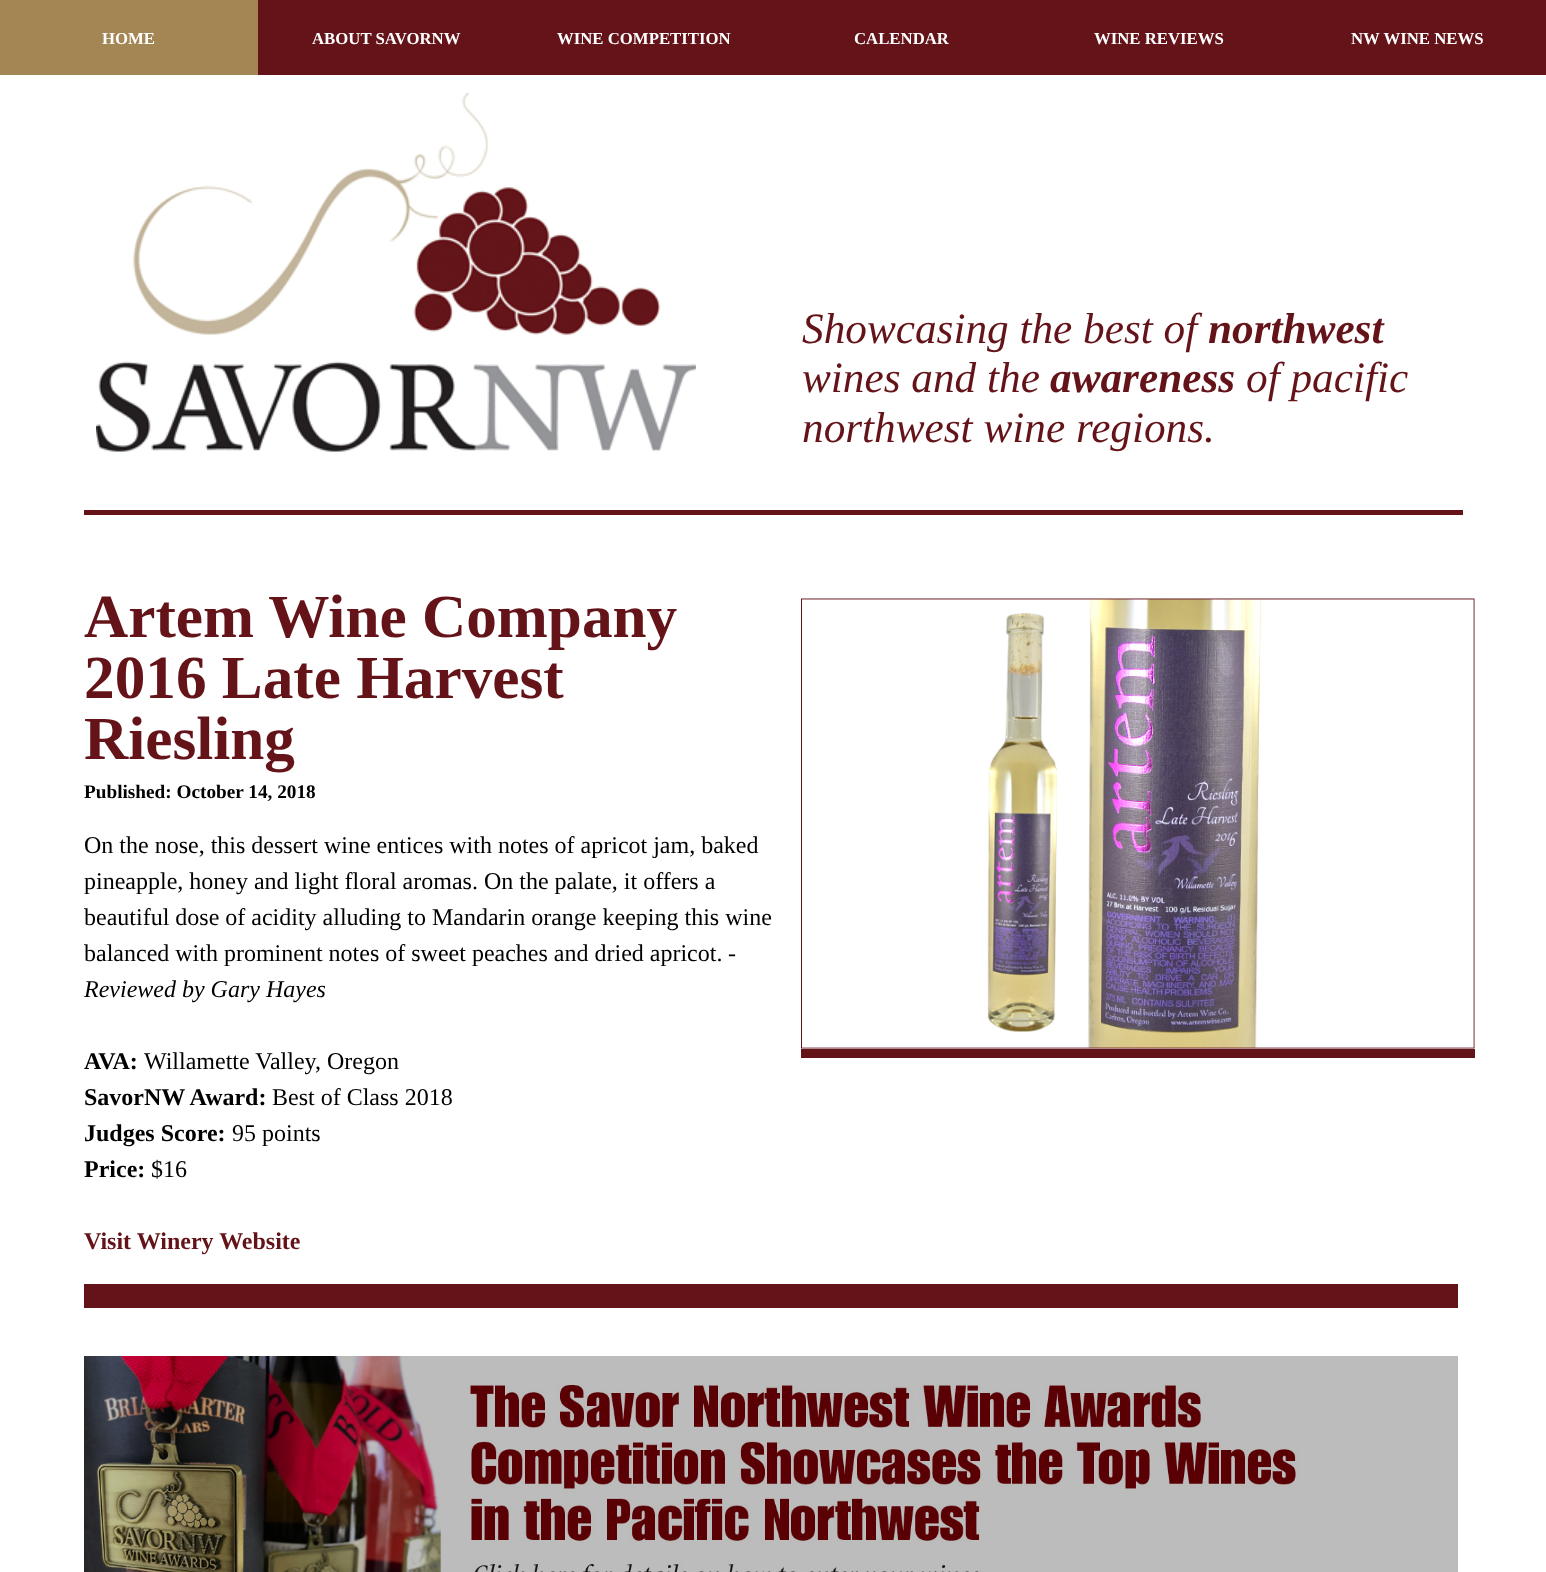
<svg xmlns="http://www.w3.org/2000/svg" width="1546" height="1572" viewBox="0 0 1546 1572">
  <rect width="100%" height="100%" fill="#fff"/>
  <path d="M258 0h1288v75H258z" fill="#641319"/>
  <path d="M0 0h258v75H0z" fill="#a38653"/>
  <image x="96" y="93" width="600" height="359" href="img/1.png"/>
  <path d="M84 510h1379v5H84z" fill="#641319"/>
  <path d="M801 1049h674v9H801z" fill="#641319"/>
  <image x="801" y="598" width="674" height="451" href="img/2.png"/>
  <path d="M84 1284h1374v24H84z" fill="#641319"/>
  <image x="84" y="1356" width="1374" height="216" href="img/3.png"/>
  <g font-family="Liberation Serif" font-size="16.75" font-weight="bold" fill="#fff">
    <text x="102" y="44">HOME</text>
    <text x="312" y="44">ABOUT SAVORNW</text>
    <text x="557" y="44">WINE COMPETITION</text>
    <text x="854" y="44">CALENDAR</text>
    <text x="1094" y="44">WINE REVIEWS</text>
    <text x="1351" y="44">NW WINE NEWS</text>
  </g>
  <text x="802" y="343" font-family="Liberation Serif" font-size="43.25" font-style="italic" fill="#641319">Showcasing the best of</text>
  <text x="1208" y="343" font-family="Liberation Serif" font-size="43.25" font-weight="bold" font-style="italic" fill="#641319">northwest</text>
  <text x="802" y="392" font-family="Liberation Serif" font-size="43.25" font-style="italic" fill="#641319">wines and the</text>
  <text x="1050" y="392" font-family="Liberation Serif" font-size="43.25" font-weight="bold" font-style="italic" fill="#641319">awareness</text>
  <g font-family="Liberation Serif" font-size="43.25" font-style="italic" fill="#641319">
    <text x="1246" y="392">of pacific</text>
    <text x="802" y="442">northwest wine regions.</text>
  </g>
  <g font-family="Liberation Serif" font-size="61.25" font-weight="bold" fill="#641319">
    <text x="84" y="637">Artem Wine Company</text>
    <text x="84" y="698">2016 Late Harvest</text>
    <text x="84" y="759">Riesling</text>
  </g>
  <text x="84" y="798" font-family="Liberation Serif" font-size="19.25" font-weight="bold" fill="#000">Published: October 14, 2018</text>
  <g font-family="Liberation Serif" font-size="24" fill="#000">
    <text x="84" y="853">On the nose, this dessert wine entices with notes of apricot jam, baked</text>
    <text x="84" y="889">pineapple, honey and light floral aromas. On the palate, it offers a</text>
    <text x="84" y="925">beautiful dose of acidity alluding to Mandarin orange keeping this wine</text>
    <text x="84" y="961">balanced with prominent notes of sweet peaches and dried apricot.</text>
  </g>
  <g font-family="Liberation Serif" font-size="24" font-style="italic" fill="#000">
    <text x="728" y="961">-</text>
    <text x="84" y="997">Reviewed by Gary Hayes</text>
  </g>
  <text x="84" y="1069" font-family="Liberation Serif" font-size="24" font-weight="bold" fill="#000">AVA:</text>
  <text x="144" y="1069" font-family="Liberation Serif" font-size="24" fill="#000">Willamette Valley, Oregon</text>
  <text x="84" y="1105" font-family="Liberation Serif" font-size="24" font-weight="bold" fill="#000">SavorNW Award:</text>
  <text x="272" y="1105" font-family="Liberation Serif" font-size="24" fill="#000">Best of Class 2018</text>
  <text x="84" y="1141" font-family="Liberation Serif" font-size="24" font-weight="bold" fill="#000">Judges Score:</text>
  <text x="232" y="1141" font-family="Liberation Serif" font-size="24" fill="#000">95 points</text>
  <text x="84" y="1177" font-family="Liberation Serif" font-size="24" font-weight="bold" fill="#000">Price:</text>
  <text x="151" y="1177" font-family="Liberation Serif" font-size="24" fill="#000">$16</text>
  <text x="84" y="1249" font-family="Liberation Serif" font-size="24" font-weight="bold" fill="#641319">Visit Winery Website</text>
</svg>
